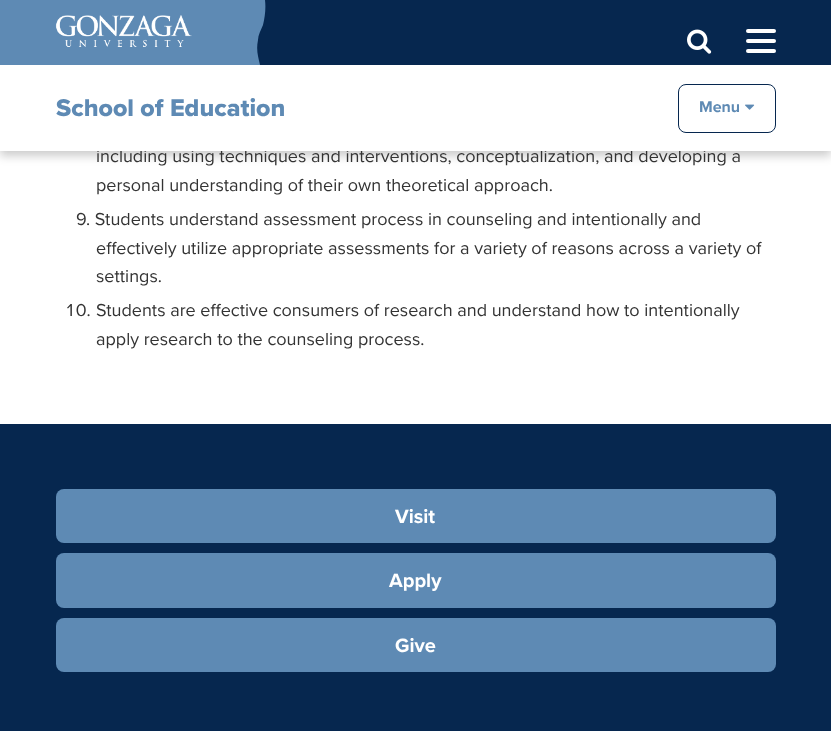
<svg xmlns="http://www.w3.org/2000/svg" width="831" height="731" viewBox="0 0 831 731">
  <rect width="100%" height="100%" fill="#fff"/>
  <path d="M0 5h831v151H0z" fill="#00000033" filter="blur(5px)"/>
  <path d="M0 0h115v65H0z" fill="#5e8ab4"/>
  <path d="M257 0h574v65H257z" fill="#06274f"/>
  <path d="M265 0H115V65H260C258 56 256 50 258 40C258 35 261 30 263 25C265 17 266 8 265 0Z" fill="#5e8ab4"/>
  <image x="55" y="15" width="137" height="32" href="img/1.png"/>
  <image x="687" y="29" width="25" height="25" href="img/2.png"/>
  <rect x="746" y="39" width="30" height="4" rx="2" fill="#fff"/>
  <rect x="746" y="29" width="30" height="4" rx="2" fill="#fff"/>
  <rect x="746" y="49" width="30" height="4" rx="2" fill="#fff"/>
  <path d="M0 424h831v307H0z" fill="#06274f"/>
  <rect x="56" y="489" width="720" height="54" rx="8" fill="#5e8ab4"/>
  <rect x="56" y="553" width="720" height="55" rx="8" fill="#5e8ab4"/>
  <rect x="56" y="618" width="720" height="54" rx="8" fill="#5e8ab4"/>
  <text x="96" y="162" font-family="Proxima Nova" font-size="18" fill="#333">including using techniques and interventions, conceptualization, and developing a</text>
  <path d="M0 65h831v86H0z" fill="#fff"/>
  <rect x="678.5" y="84.5" width="97" height="48" rx="7.5" fill="none" stroke="#06274f"/>
  <image x="745" y="104" width="10" height="6" href="img/3.png"/>
  <text x="699" y="112" font-family="Proxima Nova" font-size="16" font-weight="bold" fill="#5e8ab4">Menu</text>
  <text x="56" y="116" font-family="Proxima Nova" font-size="25" font-weight="800" fill="#5e8ab4">School of Education</text>
  <g font-family="Proxima Nova" font-size="18" fill="#333">
    <text x="96" y="191">personal understanding of their own theoretical approach.</text>
    <text x="76" y="225">9. Students understand assessment process in counseling and intentionally and</text>
    <text x="96" y="254">effectively utilize appropriate assessments for a variety of reasons across a variety of</text>
    <text x="96" y="282">settings.</text>
  </g>
  <text x="65" y="316" font-family="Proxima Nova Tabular" font-size="18" fill="#333">10.</text>
  <g font-family="Proxima Nova" font-size="18" fill="#333">
    <text x="96" y="316">Students are effective consumers of research and understand how to intentionally</text>
    <text x="96" y="345">apply research to the counseling process.</text>
  </g>
  <g font-family="Proxima Nova" font-size="20" font-weight="bold" fill="#fff">
    <text x="395" y="523">Visit</text>
    <text x="389" y="587">Apply</text>
    <text x="395" y="652">Give</text>
  </g>
</svg>
